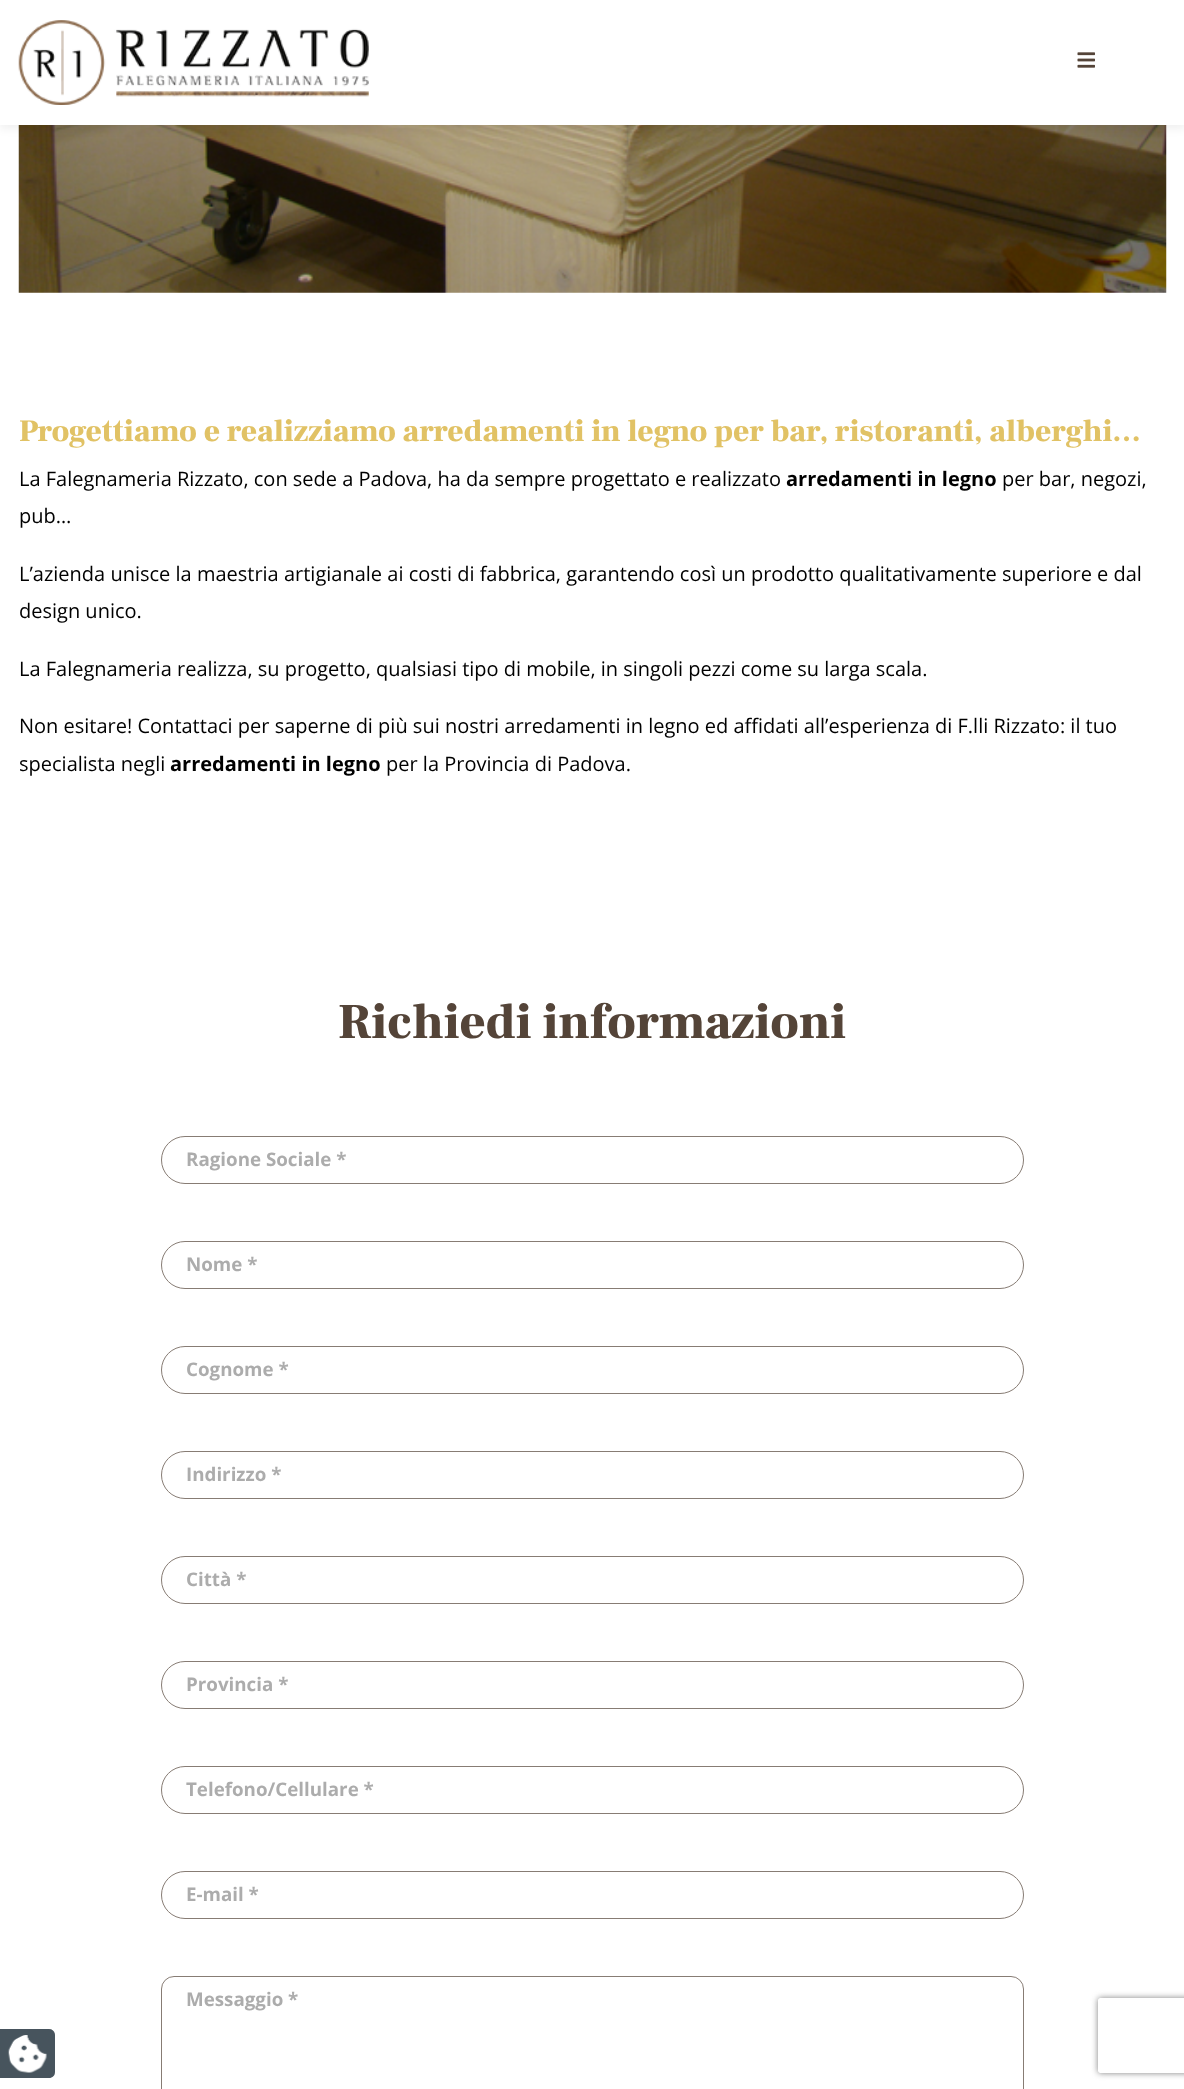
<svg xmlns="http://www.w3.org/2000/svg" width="1184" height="2089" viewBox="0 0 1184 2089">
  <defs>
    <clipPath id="clip1"><path d="M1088 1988H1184V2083H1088ZM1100.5 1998H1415.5C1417 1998 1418 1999 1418 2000.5V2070.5C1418 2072 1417 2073 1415.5 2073H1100.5C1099 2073 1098 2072 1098 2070.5V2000.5C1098 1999 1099 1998 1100.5 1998Z" clip-rule="evenodd"/></clipPath>
  </defs>
  <rect width="100%" height="100%" fill="#fff"/>
  <image x="18" y="125" width="1149" height="168" href="img/3.png"/>
  <path d="M0 4h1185v125H0z" fill="#0000000f" filter="blur(4px)"/>
  <path d="M0 0h1184v125H0z" fill="#fff"/>
  <image x="18" y="20" width="351" height="85" href="img/1.png"/>
  <image x="1077" y="52" width="18" height="16" href="img/2.png"/>
  <rect x="161.5" y="1136.5" width="862" height="47" rx="23.5" fill="none" stroke="#877c74"/>
  <rect x="161.5" y="1241.5" width="862" height="47" rx="23.5" fill="none" stroke="#877c74"/>
  <rect x="161.5" y="1346.5" width="862" height="47" rx="23.5" fill="none" stroke="#877c74"/>
  <rect x="161.5" y="1451.5" width="862" height="47" rx="23.5" fill="none" stroke="#877c74"/>
  <rect x="161.5" y="1556.5" width="862" height="47" rx="23.5" fill="none" stroke="#877c74"/>
  <rect x="161.5" y="1661.5" width="862" height="47" rx="23.5" fill="none" stroke="#877c74"/>
  <rect x="161.5" y="1766.5" width="862" height="47" rx="23.5" fill="none" stroke="#877c74"/>
  <rect x="161.5" y="1871.5" width="862" height="47" rx="23.5" fill="none" stroke="#877c74"/>
  <rect x="161.5" y="1976.5" width="862" height="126" rx="12.5" fill="none" stroke="#877c74"/>
  <path d="M0 2029H49C52.5 2029 55 2031.5 55 2035V2072C55 2075.5 52.5 2078 49 2078H0Z" fill="#47545d"/>
  <image x="8" y="2035" width="39" height="38" href="img/4.png"/>
  <g clip-path="url(#clip1)">
    <rect x="1098" y="1998" width="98" height="75" rx="2.5" fill="#808080" filter="blur(3px)"/>
  </g>
  <text x="19" y="441" font-family="Frank Ruhl Libre" font-size="31.25" font-weight="900" fill="#e1c265">Progettiamo e realizziamo arredamenti in legno per bar, ristoranti, alberghi…</text>
  <text x="19" y="486" font-family="Open Sans" font-size="20" fill="#000">La Falegnameria Rizzato, con sede a Padova, ha da sempre progettato e realizzato</text>
  <text x="786" y="486" font-family="Open Sans" font-size="20" font-weight="bold" fill="#000">arredamenti in legno</text>
  <g font-family="Open Sans" font-size="20" fill="#000">
    <text x="1002" y="486">per bar, negozi,</text>
    <text x="19" y="523">pub…</text>
    <text x="19" y="581">L’azienda unisce la maestria artigianale ai costi di fabbrica, garantendo così un prodotto qualitativamente superiore e dal</text>
    <text x="19" y="618">design unico.</text>
    <text x="19" y="676">La Falegnameria realizza, su progetto, qualsiasi tipo di mobile, in singoli pezzi come su larga scala.</text>
    <text x="19" y="733">Non esitare! Contattaci per saperne di più sui nostri arredamenti in legno ed affidati all’esperienza di F.lli Rizzato: il tuo</text>
    <text x="19" y="771">specialista negli</text>
  </g>
  <text x="170" y="771" font-family="Open Sans" font-size="20" font-weight="bold" fill="#000">arredamenti in legno</text>
  <text x="386" y="771" font-family="Open Sans" font-size="20" fill="#000">per la Provincia di Padova.</text>
  <text x="338" y="1038" font-family="Frank Ruhl Libre" font-size="50" font-weight="900" fill="#544438">Richiedi informazioni</text>
  <g font-family="Open Sans" font-size="18.75" font-weight="bold" fill="#acacac">
    <text x="186" y="1166">Ragione Sociale *</text>
    <text x="186" y="1271">Nome *</text>
    <text x="186" y="1376">Cognome *</text>
    <text x="186" y="1481">Indirizzo *</text>
    <text x="186" y="1586">Città *</text>
    <text x="186" y="1691">Provincia *</text>
    <text x="186" y="1796">Telefono/Cellulare *</text>
    <text x="186" y="1901">E-mail *</text>
    <text x="186" y="2006">Messaggio *</text>
  </g>
</svg>
